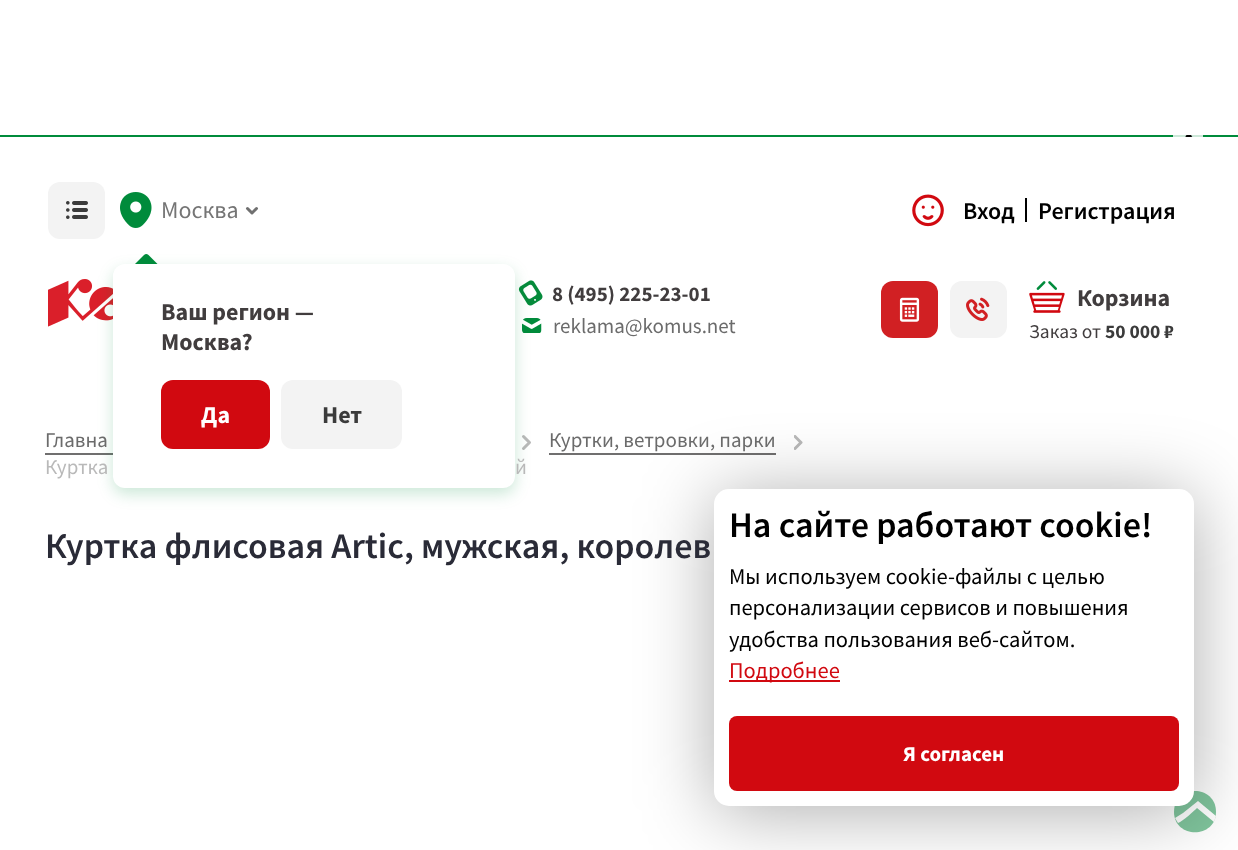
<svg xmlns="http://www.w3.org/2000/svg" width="1238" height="850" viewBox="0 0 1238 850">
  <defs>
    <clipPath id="clip1"><path d="M1179 135h20v2H1179z"/></clipPath>
    <clipPath id="clip2"><path d="M794 435h9v15H794z"/></clipPath>
  </defs>
  <rect width="100%" height="100%" fill="#fff"/>
  <path d="M0 135h1238v2H0z" fill="#008b3b"/>
  <path d="M1173 135h30v2H1173z" fill="#cce8d8"/>
  <g clip-path="url(#clip1)">
    <path d="M1182.5 129.5L1195 142M1195 129.5L1182.5 142" fill="none" stroke="#000" stroke-width="3.4" stroke-linecap="round"/>
  </g>
  <rect x="48" y="182" width="57" height="57" rx="12" fill="#f3f3f3"/>
  <image x="66" y="201" width="22" height="18" href="img/1.png"/>
  <image x="120" y="192" width="32" height="36" href="img/2.png"/>
  <path d="M247.5 208.5L252 213L256.5 208.5" fill="none" stroke="#707070" stroke-width="3" stroke-linecap="round" stroke-linejoin="round"/>
  <image x="48" y="279" width="65" height="48" href="img/4.png"/>
  <image x="518" y="280" width="25" height="26" href="img/5.png"/>
  <image x="522" y="318" width="20" height="15" href="img/6.png"/>
  <path d="M45 453h68v2H45z" fill="#706f6f"/>
  <path d="M523.5 436.5L529.5 442.5L523.5 448.5" fill="none" stroke="#b9b9b9" stroke-width="3" stroke-linecap="round" stroke-linejoin="round"/>
  <rect x="113" y="270" width="402" height="224" rx="12" fill="#008b3b33" filter="blur(7.5px)"/>
  <rect x="113" y="264" width="402" height="224" rx="12" fill="#fff"/>
  <path d="M144 255L135 264H157.5L148.5 255C147 253.5 145.5 253.5 144 255" fill="#008b3b"/>
  <rect x="161" y="380" width="109" height="69" rx="12" fill="#d10910"/>
  <rect x="281" y="380" width="121" height="69" rx="12" fill="#f3f3f3"/>
  <image x="912" y="194" width="32" height="33" href="img/3.png"/>
  <path d="M1025 198h2v24H1025z" fill="#000"/>
  <rect x="881" y="281" width="57" height="57" rx="12" fill="#d12023"/>
  <image x="899" y="297" width="21" height="25" href="img/7.png"/>
  <rect x="951" y="282" width="55" height="55" rx="11" fill="#f3f3f3" stroke="#f3f3f3" stroke-width="2"/>
  <image x="966" y="297" width="24" height="24" href="img/8.png"/>
  <image x="1029" y="281" width="36" height="32" href="img/9.png"/>
  <path d="M549 453h227v2H549z" fill="#706f6f"/>
  <g clip-path="url(#clip2)">
    <path d="M795 436.5L801 442.5L795 448.5" fill="none" stroke="#b9b9b9" stroke-width="3" stroke-linecap="round" stroke-linejoin="round"/>
  </g>
  <path d="M1216 812C1216 839 1174 839 1174 812C1174 784 1216 784 1216 812Z" fill="#80c59d"/>
  <path d="M1175 818L1183 813L1198 801L1216 816L1214 822L1197 808C1194 811 1183 821 1178 823Z" fill="#fff"/>
  <rect x="714" y="495" width="480" height="317" rx="15" fill="#00000052" filter="blur(37.5px)"/>
  <rect x="714" y="489" width="480" height="317" rx="15" fill="#fff"/>
  <path d="M729 680h111v2H729z" fill="#d10910"/>
  <rect x="729" y="716" width="450" height="75" rx="8" fill="#d10910"/>
  <text x="161" y="218" font-family="Source Sans Pro" font-size="24" fill="#757575">Москва</text>
  <g font-family="Source Sans Pro" font-size="24" font-weight="bold" fill="#413d3e">
    <text x="161" y="320">Ваш регион —</text>
    <text x="161" y="350">Москва?</text>
  </g>
  <text x="201" y="423" font-family="Source Sans Pro" font-size="24" font-weight="bold" fill="#fff">Да</text>
  <text x="322" y="423" font-family="Source Sans Pro" font-size="24" font-weight="bold" fill="#3b3b3b">Нет</text>
  <g font-family="Source Sans Pro" font-size="24" font-weight="600" fill="#000">
    <text x="963" y="219">Вход</text>
    <text x="1038" y="219">Регистрация</text>
  </g>
  <text x="552" y="301" font-family="Source Sans Pro" font-size="21" font-weight="bold" fill="#413d3e">8 (495) 225-23-01</text>
  <text x="553" y="333" font-family="Source Sans Pro" font-size="21" fill="#6b6b6b">reklama@komus.net</text>
  <text x="1077" y="306" font-family="Source Sans Pro" font-size="24" font-weight="bold" fill="#413d3e">Корзина</text>
  <text x="1029" y="338" font-family="Source Sans Pro" font-size="19.5" fill="#413d3e">Заказ от</text>
  <text x="1105" y="338" font-family="Source Sans Pro" font-size="19.5" font-weight="bold" fill="#3b3b3b">50 000 ₽</text>
  <g font-family="Source Sans Pro" font-size="21" fill="#6b6b6b">
    <text x="45" y="447">Главна</text>
    <text x="549" y="447">Куртки, ветровки, парки</text>
  </g>
  <g font-family="Source Sans Pro" font-size="21" fill="#b9b9b9">
    <text x="45" y="474">Куртка</text>
    <text x="515" y="474">й</text>
  </g>
  <text x="45" y="558" font-family="Source Sans Pro" font-size="36" font-weight="600" fill="#2a2b37">Куртка флисовая Artic, мужская, королев</text>
  <text x="729" y="537" font-family="Source Sans Pro" font-size="36" font-weight="600" fill="#000">На сайте работают cookie!</text>
  <g font-family="Source Sans Pro" font-size="22.5" fill="#000">
    <text x="729" y="584">Мы используем cookie-файлы с целью</text>
    <text x="729" y="615">персонализации сервисов и повышения</text>
    <text x="729" y="647">удобства пользования веб-сайтом.</text>
  </g>
  <text x="729" y="678" font-family="Source Sans Pro" font-size="22.5" fill="#d10910">Подробнее</text>
  <text x="903" y="761" font-family="Source Sans Pro" font-size="21" font-weight="bold" fill="#fff">Я согласен</text>
</svg>
